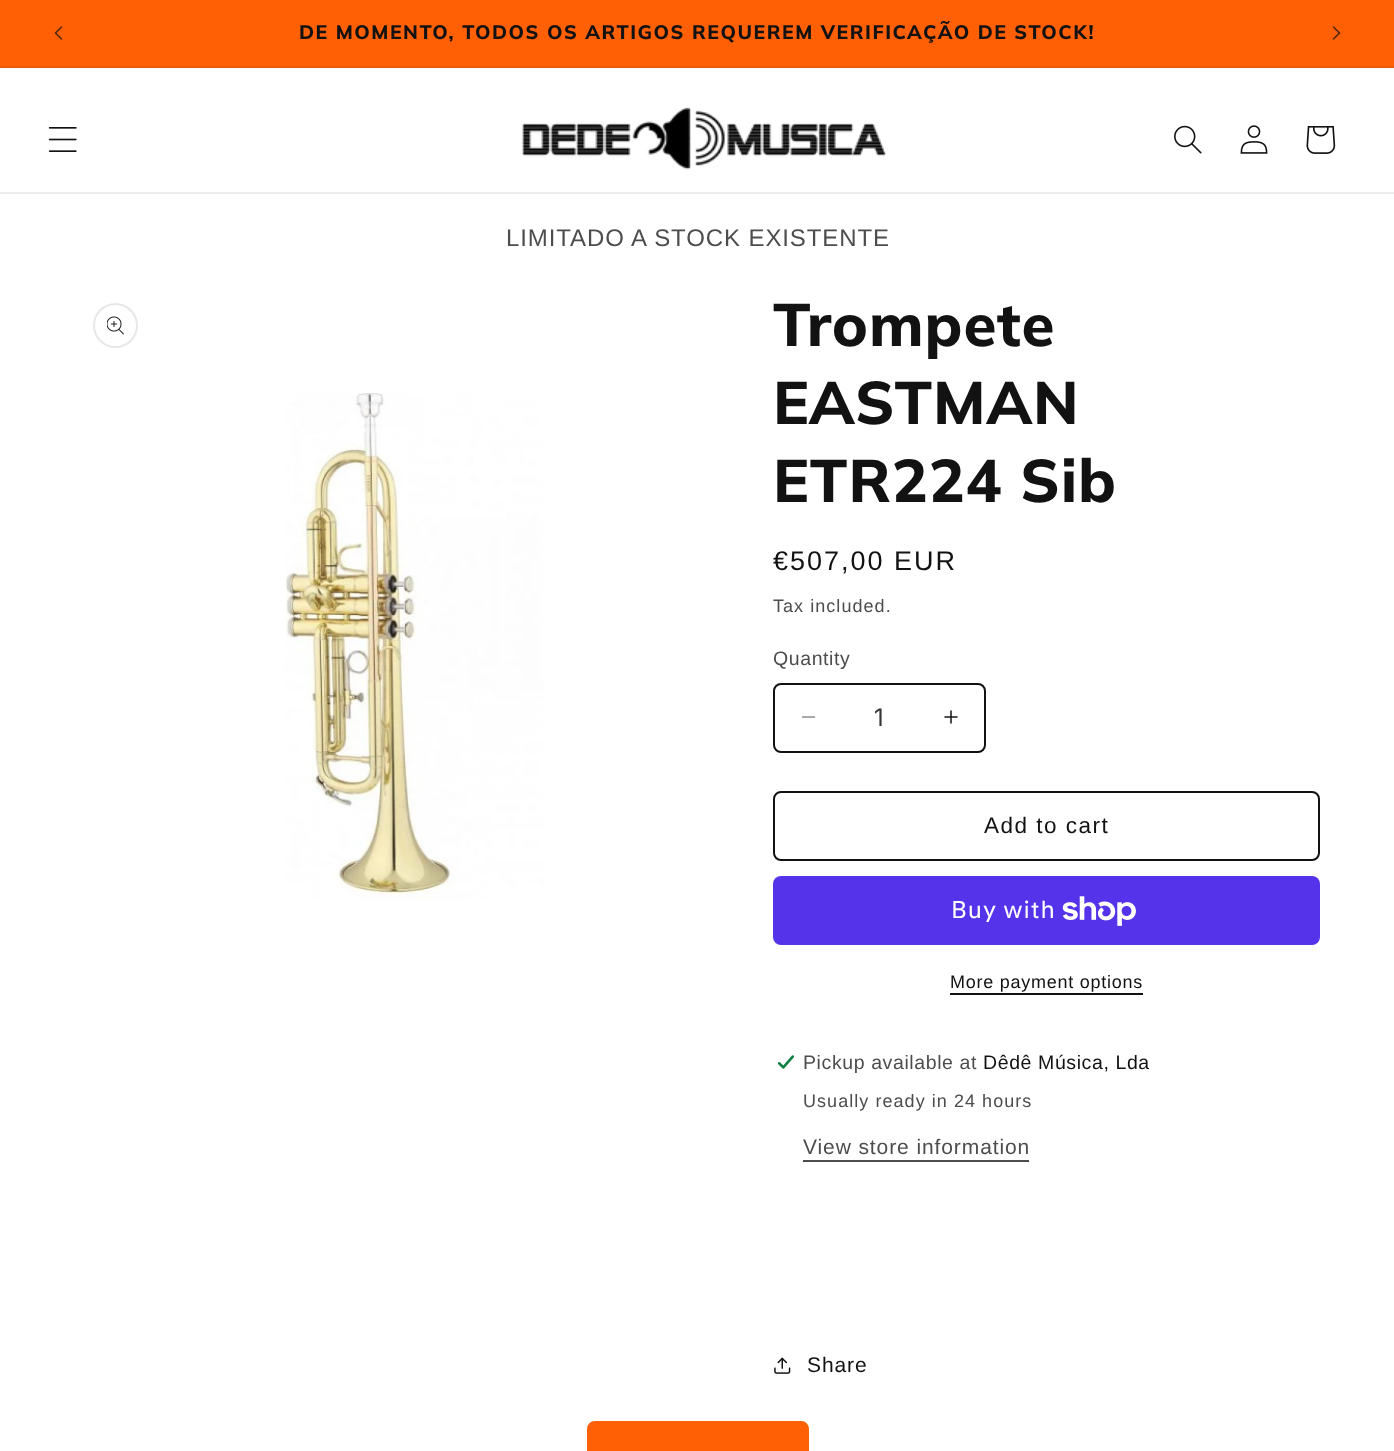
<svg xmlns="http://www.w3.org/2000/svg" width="1394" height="1451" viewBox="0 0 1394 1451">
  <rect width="100%" height="100%" fill="#fff"/>
  <path d="M0 0h1394v66H0z" fill="#ff6006"/>
  <path d="M0 66h1394v2H0z" fill="#ec5a07"/>
  <image x="54" y="26" width="9" height="14" href="img/1.png"/>
  <image x="1332" y="26" width="9" height="14" href="img/2.png"/>
  <path d="M0 192h1394v2H0z" fill="#ececec"/>
  <image x="48" y="127" width="29" height="25" href="img/3.png"/>
  <image x="521" y="107" width="365" height="63" href="img/4.png"/>
  <image x="1174" y="125" width="28" height="29" href="img/5.png"/>
  <image x="1240" y="125" width="28" height="29" href="img/6.png"/>
  <image x="1306" y="126" width="30" height="28" href="img/7.png"/>
  <circle cx="115.5" cy="325.5" r="21.5" fill="none" stroke="#e7e7e7" stroke-width="2"/>
  <image x="107" y="316" width="17" height="19" href="img/8.png"/>
  <image x="285" y="393" width="259" height="507" href="img/9.png"/>
  <image x="801" y="716" width="15" height="2" href="img/10.png"/>
  <image x="944" y="710" width="14" height="14" href="img/11.png"/>
  <rect x="774" y="684" width="211" height="68" rx="7" fill="none" stroke="#121212" stroke-width="2"/>
  <rect x="774" y="792" width="545" height="68" rx="7" fill="none" stroke="#121212" stroke-width="2"/>
  <rect x="773" y="876" width="547" height="69" rx="8" fill="#5433eb"/>
  <image x="1062" y="896" width="74" height="30" href="img/12.png"/>
  <path d="M950 993h193v2H950z" fill="#121212"/>
  <image x="777" y="1055" width="18" height="14" href="img/13.png"/>
  <path d="M803 1160h226v2H803z" fill="#4d4d4d"/>
  <image x="774" y="1357" width="17" height="17" href="img/14.png"/>
  <rect x="588" y="1422" width="220" height="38" rx="7" fill="#ff6006" stroke="#ff6006" stroke-width="2"/>
  <text x="299" y="39" font-family="Muli" font-size="19.5" font-weight="800" letter-spacing="1.5" fill="#121212">DE MOMENTO, TODOS OS ARTIGOS REQUEREM VERIFICAÇÃO DE STOCK!</text>
  <text x="506" y="246" font-family="Liberation Sans" font-size="24" letter-spacing="0.9" fill="#4d4d4d">LIMITADO A STOCK EXISTENTE</text>
  <g font-family="Muli" font-size="60" font-weight="800" letter-spacing="0.9" fill="#121212">
    <text x="773" y="346">Trompete</text>
    <text x="773" y="424">EASTMAN</text>
    <text x="773" y="502">ETR224 Sib</text>
  </g>
  <text x="773" y="570" font-family="Liberation Sans" font-size="27" letter-spacing="2" fill="#121212">€507,00 EUR</text>
  <text x="773" y="612" font-family="Liberation Sans" font-size="18" letter-spacing="1.05" fill="#4d4d4d">Tax included.</text>
  <text x="773" y="665" font-family="Liberation Sans" font-size="19.5" letter-spacing="0.6" fill="#4d4d4d">Quantity</text>
  <text x="874" y="726" font-family="Inter" font-size="24" fill="#363636">1</text>
  <text x="984" y="833" font-family="Liberation Sans" font-size="22.5" letter-spacing="1.5" fill="#121212">Add to cart</text>
  <text x="951" y="918" font-family="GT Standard" font-size="24" letter-spacing="0.9" fill="#fff">Buy with</text>
  <text x="950" y="988" font-family="Liberation Sans" font-size="18" letter-spacing="0.75" fill="#121212">More payment options</text>
  <text x="803" y="1069" font-family="Liberation Sans" font-size="19.5" letter-spacing="0.6" fill="#4d4d4d">Pickup available at</text>
  <text x="983" y="1069" font-family="Liberation Sans" font-size="19.5" letter-spacing="0.6" fill="#121212">Dêdê Música, Lda</text>
  <text x="803" y="1107" font-family="Liberation Sans" font-size="18" letter-spacing="1.05" fill="#4d4d4d">Usually ready in 24 hours</text>
  <text x="803" y="1154" font-family="Liberation Sans" font-size="21" letter-spacing="0.9" fill="#4d4d4d">View store information</text>
  <text x="807" y="1372" font-family="Liberation Sans" font-size="21" letter-spacing="0.9" fill="#121212">Share</text>
</svg>
